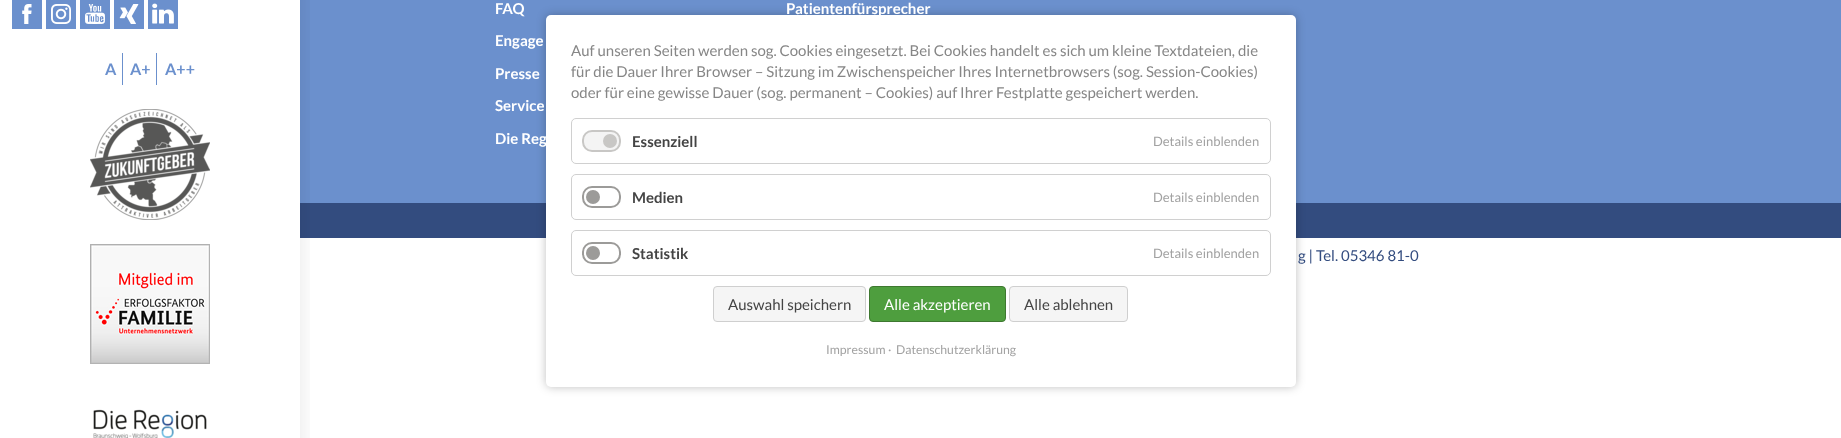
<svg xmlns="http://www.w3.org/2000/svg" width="1841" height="438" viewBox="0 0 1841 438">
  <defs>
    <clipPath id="clip1"><path d="M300 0h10v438H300z"/></clipPath>
  </defs>
  <rect width="100%" height="100%" fill="#fff"/>
  <path d="M300 0h1541v203H300z" fill="#6b90cd"/>
  <path d="M300 203h1541v35H300z" fill="#334c7f"/>
  <g clip-path="url(#clip1)">
    <path d="M-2 -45h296v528H-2z" fill="#00000024" filter="blur(15px)"/>
  </g>
  <path d="M12 0h30v29H12z" fill="#6b90cd"/>
  <image x="22" y="4" width="10" height="20" href="img/1.png"/>
  <path d="M46 0h30v29H46z" fill="#6b90cd"/>
  <image x="51" y="4" width="20" height="20" href="img/2.png"/>
  <path d="M80 0h30v29H80z" fill="#6b90cd"/>
  <image x="85" y="4" width="20" height="20" href="img/3.png"/>
  <path d="M114 0h30v29H114z" fill="#6b90cd"/>
  <image x="119" y="4" width="20" height="20" href="img/4.png"/>
  <path d="M148 0h30v29H148z" fill="#6b90cd"/>
  <image x="152" y="3" width="22" height="21" href="img/5.png"/>
  <path d="M122 53h1v32H122z" fill="#6b90cd"/>
  <path d="M156 53h1v32H156z" fill="#6b90cd"/>
  <image x="90" y="109" width="120" height="111" href="img/6.png"/>
  <image x="90" y="244" width="120" height="120" href="img/7.png"/>
  <image x="93" y="409" width="114" height="29" href="img/8.png"/>
  <rect x="546" y="15" width="750" height="372" rx="5" fill="#00000040" filter="blur(5px)"/>
  <rect x="546" y="15" width="750" height="372" rx="5" fill="#fff"/>
  <rect x="571.5" y="118.5" width="699" height="45" rx="4.5" fill="none" stroke="#d0d0d0"/>
  <rect x="583" y="131" width="37" height="20" rx="9" fill="#f4f4f4" stroke="#c8c7c5" stroke-width="2"/>
  <circle cx="610" cy="141" r="7" fill="#c8c7c5"/>
  <rect x="571.5" y="174.5" width="699" height="45" rx="4.5" fill="none" stroke="#d0d0d0"/>
  <rect x="583" y="187" width="37" height="20" rx="9" fill="none" stroke="#9c9b99" stroke-width="2"/>
  <circle cx="593" cy="197" r="7" fill="#9c9b99"/>
  <rect x="571.5" y="230.5" width="699" height="45" rx="4.5" fill="none" stroke="#d0d0d0"/>
  <rect x="583" y="243" width="37" height="20" rx="9" fill="none" stroke="#9c9b99" stroke-width="2"/>
  <circle cx="593" cy="253" r="7" fill="#9c9b99"/>
  <rect x="713.5" y="286.5" width="152" height="35" rx="3.5" fill="#f5f5f5" stroke="#cfcfcf"/>
  <rect x="869.5" y="286.5" width="136" height="35" rx="3.5" fill="#4e9e3e" stroke="#3e7830"/>
  <rect x="1009.5" y="286.5" width="118" height="35" rx="3.5" fill="#f5f5f5" stroke="#cfcfcf"/>
  <g font-family="Lato" font-size="16" font-weight="bold" fill="#6b90cd">
    <text x="105" y="75">A</text>
    <text x="130" y="75">A+</text>
    <text x="165" y="75">A++</text>
  </g>
  <g font-family="Lato" font-size="15" font-weight="bold" fill="#fff">
    <text x="495" y="14">FAQ</text>
    <text x="495" y="46">Engage</text>
    <text x="495" y="79">Presse</text>
    <text x="495" y="111">Service</text>
    <text x="495" y="144">Die Reg</text>
    <text x="786" y="14">Patientenfürsprecher</text>
  </g>
  <text x="1298" y="261" font-family="Lato" font-size="15" fill="#334c7f">g | Tel. 05346 81-0</text>
  <g font-family="Lato" font-size="15" fill="#868686">
    <text x="571" y="56">Auf unseren Seiten werden sog. Cookies eingesetzt. Bei Cookies handelt es sich um kleine Textdateien, die</text>
    <text x="571" y="77">für die Dauer Ihrer Browser – Sitzung im Zwischenspeicher Ihres Internetbrowsers (sog. Session-Cookies)</text>
    <text x="571" y="98">oder für eine gewisse Dauer (sog. permanent – Cookies) auf Ihrer Festplatte gespeichert werden.</text>
  </g>
  <text x="632" y="147" font-family="Lato" font-size="15" font-weight="bold" fill="#444">Essenziell</text>
  <text x="1153" y="146" font-family="Lato" font-size="13" fill="#a2a2a2">Details einblenden</text>
  <text x="632" y="203" font-family="Lato" font-size="15" font-weight="bold" fill="#444">Medien</text>
  <text x="1153" y="202" font-family="Lato" font-size="13" fill="#a2a2a2">Details einblenden</text>
  <text x="632" y="259" font-family="Lato" font-size="15" font-weight="bold" fill="#444">Statistik</text>
  <text x="1153" y="258" font-family="Lato" font-size="13" fill="#a2a2a2">Details einblenden</text>
  <text x="728" y="310" font-family="Lato" font-size="15" fill="#444">Auswahl speichern</text>
  <text x="884" y="310" font-family="Lato" font-size="15" fill="#fff">Alle akzeptieren</text>
  <text x="1024" y="310" font-family="Lato" font-size="15" fill="#444">Alle ablehnen</text>
  <g font-family="Lato" font-size="12.25" fill="#a2a2a2">
    <text x="826" y="354">Impressum</text>
    <text x="888" y="354">·</text>
    <text x="896" y="354">Datenschutzerklärung</text>
  </g>
</svg>
